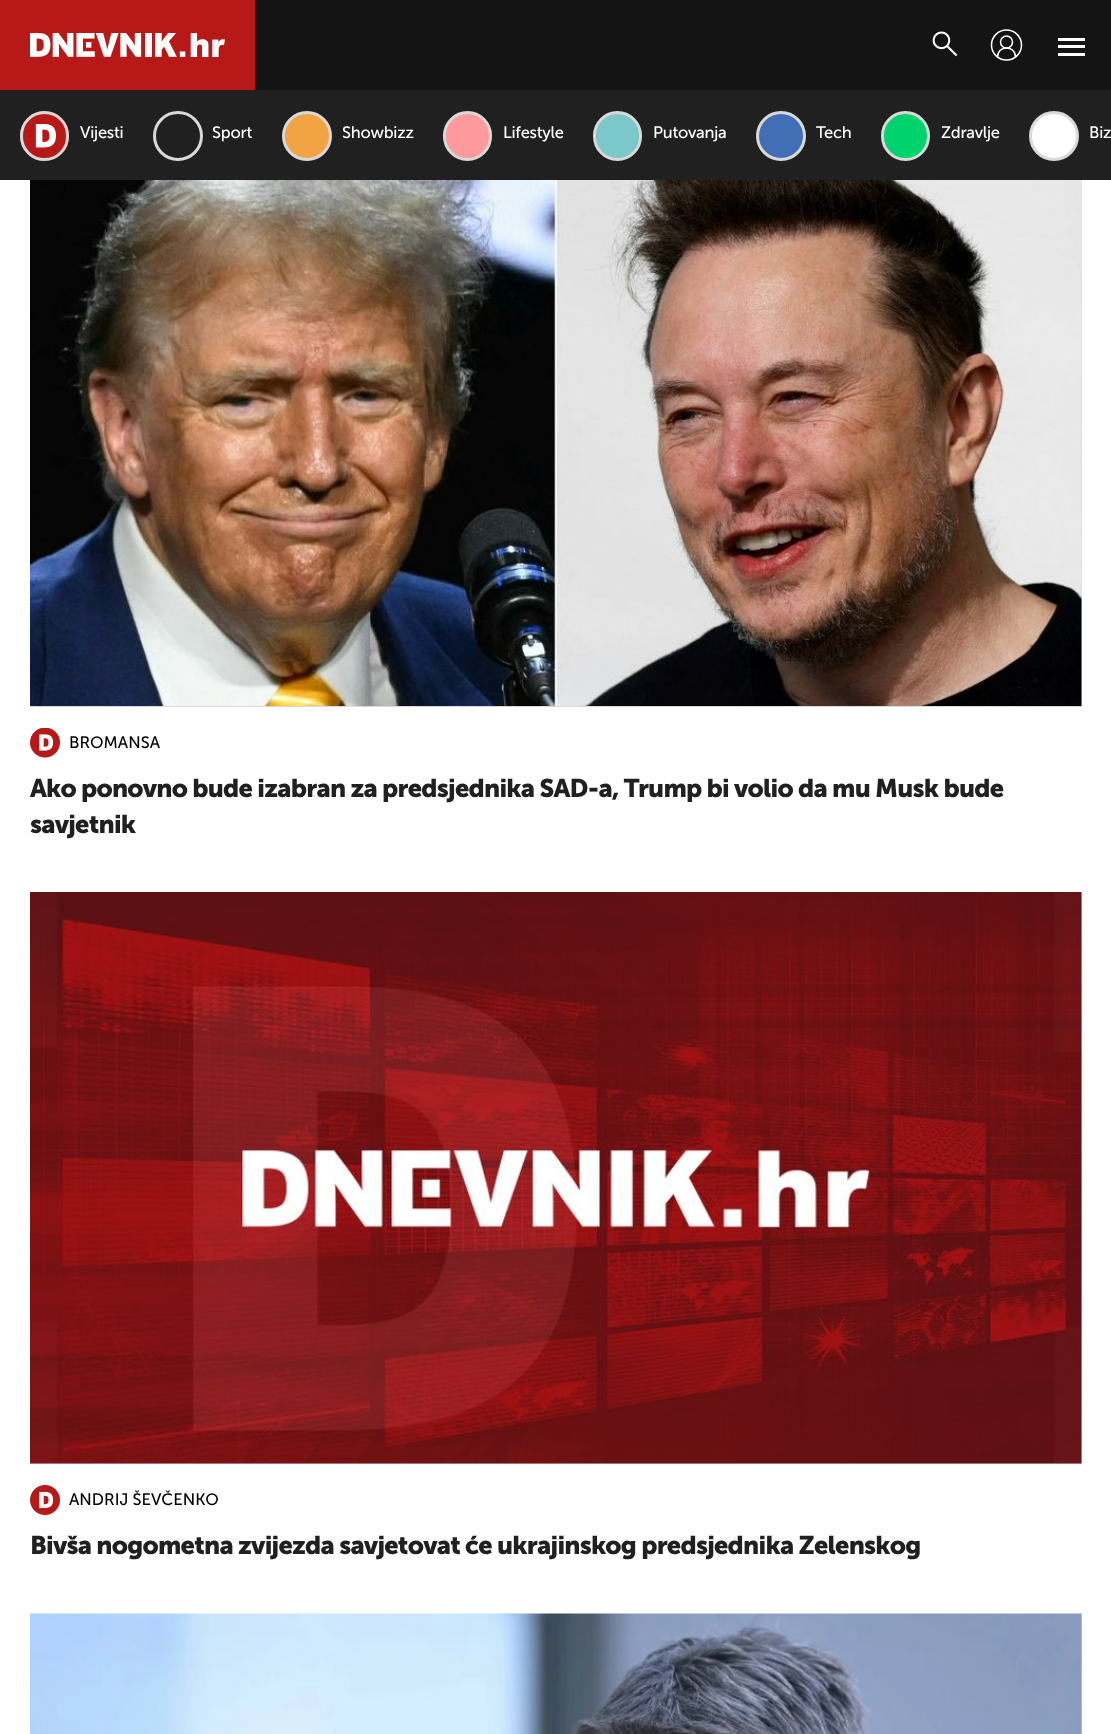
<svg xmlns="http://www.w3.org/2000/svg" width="1111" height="1734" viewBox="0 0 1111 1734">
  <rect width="100%" height="100%" fill="#fff"/>
  <path d="M255 0h856v90H255z" fill="#141414"/>
  <path d="M0 0h255v90H0z" fill="#b71918"/>
  <image x="30" y="33" width="195" height="24" href="img/1.png"/>
  <image x="932" y="31" width="26" height="26" href="img/2.png"/>
  <path d="M1015.5 57C1015.5 45 997.5 45 997.5 57" fill="none" stroke="#fff" stroke-width="1.5" stroke-linecap="round" stroke-linejoin="round"/>
  <circle cx="1006.5" cy="42" r="6" fill="none" stroke="#fff" stroke-width="1.5"/>
  <circle cx="1006.5" cy="45" r="15" fill="none" stroke="#fff" stroke-width="1.5"/>
  <path d="M1058 45h27v3H1058z" fill="#fff"/>
  <path d="M1058 38h27v3H1058z" fill="#fff"/>
  <path d="M1058 53h27v3H1058z" fill="#fff"/>
  <path d="M0 90h1111v90H0z" fill="#202020"/>
  <rect x="20" y="111" width="49" height="50" rx="24.5" fill="#b71918"/>
  <image x="35" y="124" width="21" height="24" href="img/3.png"/>
  <rect x="21.5" y="112.5" width="46" height="47" rx="23" fill="none" stroke="#d9d9d9" stroke-width="3"/>
  <circle cx="178" cy="136" r="23.5" fill="none" stroke="#d9d9d9" stroke-width="3"/>
  <circle cx="307" cy="136" r="23.5" fill="#f2a444" stroke="#d9d9d9" stroke-width="3"/>
  <rect x="444.5" y="112.5" width="46" height="47" rx="23" fill="#ff999d" stroke="#d9d9d9" stroke-width="3"/>
  <rect x="594.5" y="112.5" width="46" height="47" rx="23" fill="#7bc8ca" stroke="#d9d9d9" stroke-width="3"/>
  <circle cx="781" cy="136" r="23.5" fill="#426eb5" stroke="#d9d9d9" stroke-width="3"/>
  <rect x="882.5" y="112.5" width="46" height="47" rx="23" fill="#00d36e" stroke="#d9d9d9" stroke-width="3"/>
  <circle cx="1054" cy="136" r="23.5" fill="#fff" stroke="#d9d9d9" stroke-width="3"/>
  <path d="M30 180h1052v527H30z" fill="#d9d9d9"/>
  <image x="30" y="180" width="1052" height="526" href="img/4.png"/>
  <image x="30" y="728" width="30" height="30" href="img/5.png"/>
  <path d="M30 893h1052v571H30z" fill="#d9d9d9"/>
  <image x="30" y="892" width="1052" height="572" href="img/6.png"/>
  <image x="30" y="1485" width="30" height="30" href="img/7.png"/>
  <path d="M1081 1614h1v120H1081z" fill="#d9d9d9"/>
  <image x="30" y="1613" width="1052" height="121" href="img/8.png"/>
  <g font-family="'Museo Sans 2'" font-size="16.5" letter-spacing="-0.25" fill="#fff">
    <text x="80" y="138">Vijesti</text>
    <text x="212" y="138">Sport</text>
    <text x="342" y="138">Showbizz</text>
    <text x="503" y="138">Lifestyle</text>
    <text x="653" y="138">Putovanja</text>
    <text x="816" y="138">Tech</text>
    <text x="941" y="138">Zdravlje</text>
    <text x="1089" y="138">Biz</text>
  </g>
  <text x="69" y="748" font-family="'Museo Sans 2'" font-size="16.5" fill="#000">BROMANSA</text>
  <g font-family="Museo Sans" font-size="25.5" letter-spacing="-0.77" fill="#202020">
    <text x="30" y="797">Ako ponovno bude izabran za predsjednika SAD-a, Trump bi volio da mu Musk bude</text>
    <text x="30" y="833">savjetnik</text>
  </g>
  <text x="69" y="1505" font-family="'Museo Sans 2'" font-size="16.5" fill="#000">ANDRIJ ŠEVČENKO</text>
  <text x="30" y="1554" font-family="Museo Sans" font-size="25.5" letter-spacing="-0.77" fill="#202020">Bivša nogometna zvijezda savjetovat će ukrajinskog predsjednika Zelenskog</text>
</svg>
